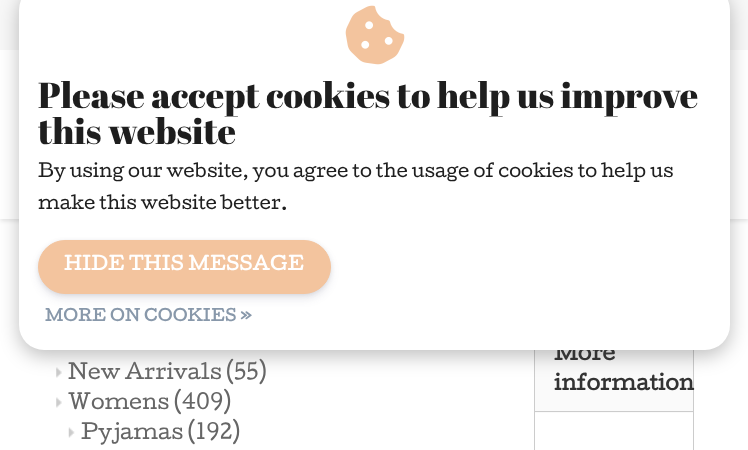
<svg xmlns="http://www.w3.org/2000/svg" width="748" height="450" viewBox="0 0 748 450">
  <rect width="100%" height="100%" fill="#fff"/>
  <path d="M0 3h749v218H0z" fill="#0000001a" filter="blur(2px)"/>
  <path d="M0 50h748v169H0z" fill="#fff"/>
  <path d="M0 0h748v50H0z" fill="#f7f7f7"/>
  <image x="56" y="367" width="6" height="11" href="img/2.png"/>
  <path d="M534.5 330.5h159v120H534.5z" fill="none" stroke="#ccc"/>
  <path d="M535 350h158v63H535z" fill="#fafafa"/>
  <rect x="19" y="-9" width="711" height="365" rx="25" fill="#00000040" filter="blur(9.5px)"/>
  <image x="56" y="397" width="6" height="11" href="img/2.png"/>
  <image x="68" y="427" width="7" height="11" href="img/3.png"/>
  <path d="M535 411h158v1H535z" fill="#ccc"/>
  <g font-family="Cutive" font-size="20" fill="#666">
    <text x="68" y="379">New Arrivals (55)</text>
    <text x="68" y="409">Womens (409)</text>
    <text x="81" y="439">Pyjamas (192)</text>
  </g>
  <text x="554" y="360" font-family="Cutive" font-size="20" font-weight="bold" fill="#333">More</text>
  <rect x="19" y="-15" width="711" height="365" rx="25" fill="#fff"/>
  <rect x="38" y="245" width="293" height="54" rx="27" fill="#32325d1c" filter="blur(4px)"/>
  <text x="45" y="321" font-family="Cutive" font-size="15" font-weight="bold" letter-spacing="0.4" fill="#8898aa">MORE ON COOKIES »</text>
  <rect x="38" y="241" width="293" height="54" rx="27" fill="#00000014" filter="blur(2px)"/>
  <rect x="38.5" y="240.5" width="292" height="53" rx="26.5" fill="#f3c49e" stroke="#f3c49e"/>
  <text x="64" y="270" font-family="Cutive" font-size="17.5" font-weight="bold" letter-spacing="0.4" fill="#fff">HIDE THIS MESSAGE</text>
  <image x="345" y="5" width="60" height="60" href="img/1.png"/>
  <g font-family="Cutive" font-size="17.5" fill="#1e1e1e">
    <text x="38" y="209">make this website better.</text>
    <text x="38" y="177">By using our website, you agree to the usage of cookies to help us</text>
  </g>
  <g font-family="Abril Fatface" font-size="36" fill="#1e1e1e">
    <text x="38" y="144">this website</text>
    <text x="38" y="108">Please accept cookies to help us improve</text>
  </g>
  <text x="554" y="390" font-family="Cutive" font-size="20" font-weight="bold" fill="#333">information</text>
</svg>
